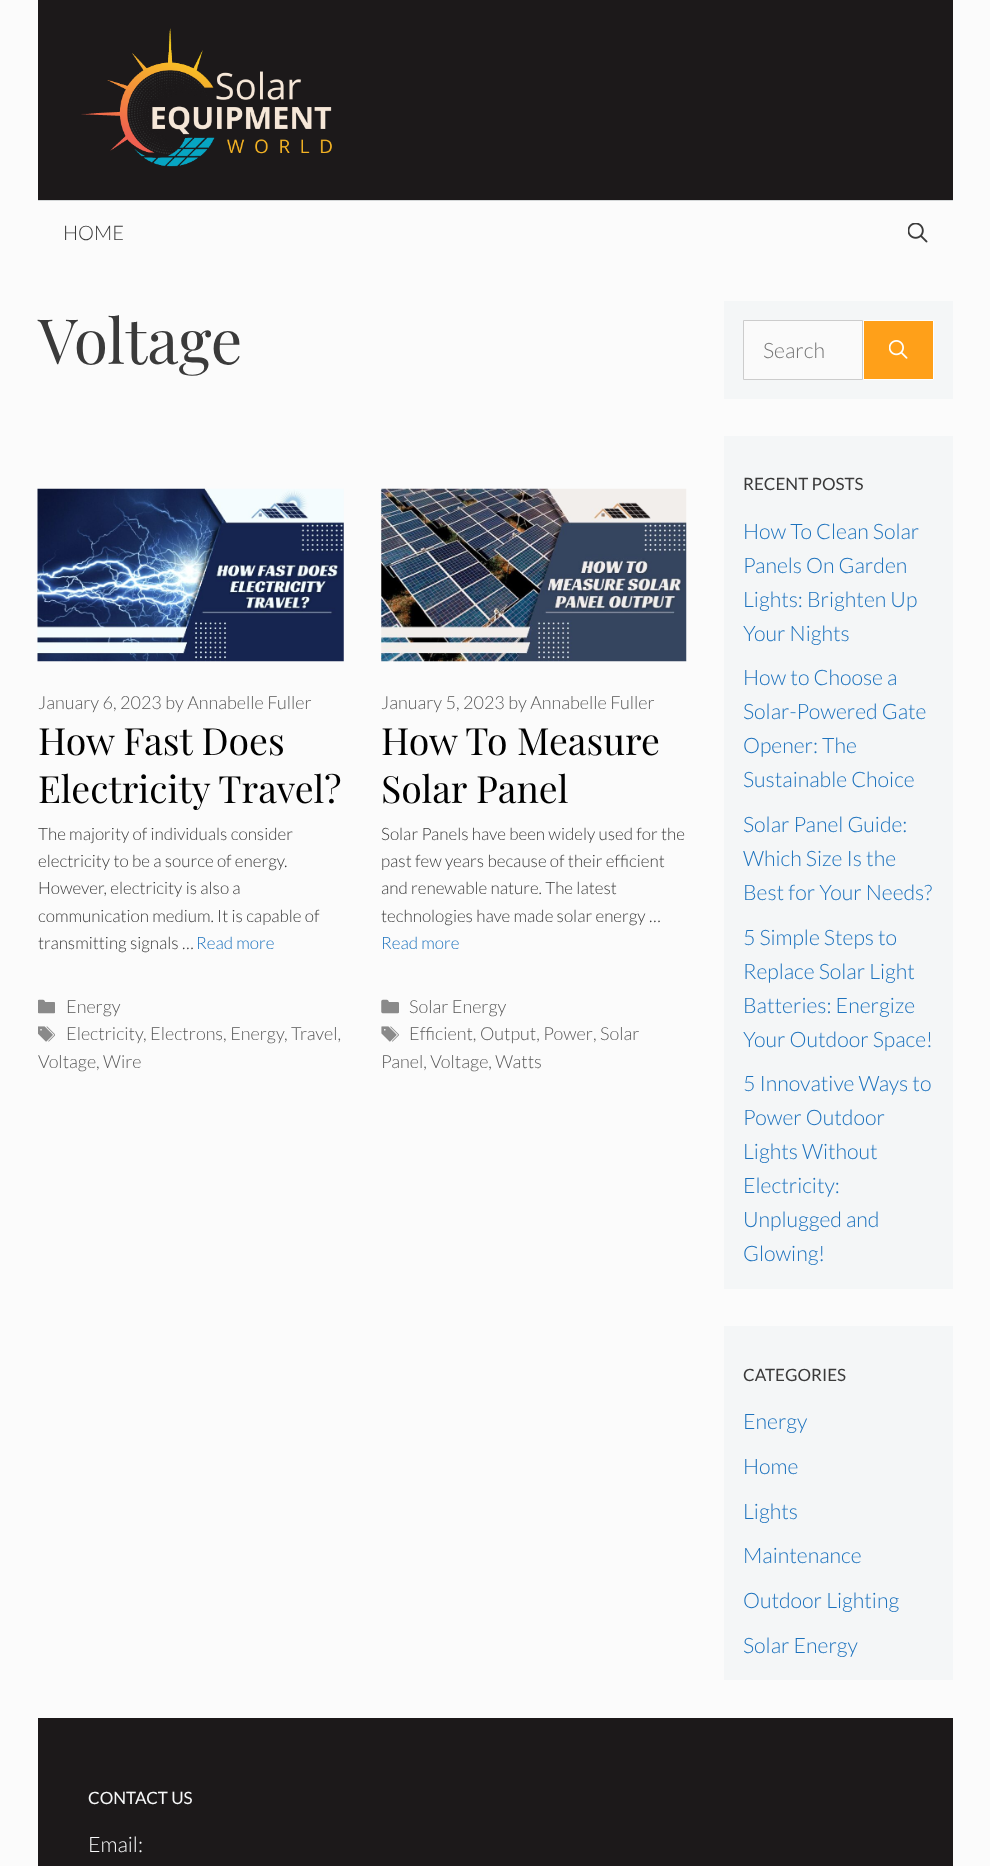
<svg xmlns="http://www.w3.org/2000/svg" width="990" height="1866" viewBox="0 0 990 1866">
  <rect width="100%" height="100%" fill="#fbfbfb"/>
  <path d="M38 0h915v200H38z" fill="#1c191a"/>
  <image x="81" y="28" width="251" height="139" href="img/1.png"/>
  <path d="M38 200h915v1H38z" fill="#d4d7d8"/>
  <image x="908" y="223" width="20" height="20" href="img/2.png"/>
  <image x="37" y="488" width="307" height="174" href="img/3.png"/>
  <image x="38" y="999" width="17" height="15" href="img/4.png"/>
  <image x="38" y="1026" width="17" height="16" href="img/5.png"/>
  <image x="381" y="488" width="306" height="174" href="img/6.png"/>
  <image x="381" y="999" width="18" height="15" href="img/7.png"/>
  <image x="381" y="1026" width="18" height="16" href="img/8.png"/>
  <path d="M724 301h229v98H724z" fill="#f4f6f7"/>
  <path d="M743.5 320.5h119v59H743.5z" fill="#fafafa" stroke="#ccc"/>
  <path d="M863.5 320.5h70v59H863.5z" fill="#ffa019" stroke="#fff"/>
  <image x="889" y="340" width="19" height="19" href="img/9.png"/>
  <path d="M724 436h229v853H724z" fill="#f4f6f7"/>
  <path d="M724 1326h229v354H724z" fill="#f4f6f7"/>
  <path d="M38 1718h915v148H38z" fill="#1c191a"/>
  <text x="63" y="240" font-family="Lato" font-size="20" font-weight="300" fill="#3a3a3a">HOME</text>
  <text x="38" y="364" font-family="Playfair Display" font-size="62.5" fill="#3a3a3a">Voltage</text>
  <text x="38" y="709" font-family="Lato" font-size="18" font-weight="300" fill="#595959">January 6, 2023 by Annabelle Fuller</text>
  <g font-family="Playfair Display" font-size="37.5" fill="#000">
    <text x="38" y="755">How Fast Does</text>
    <text x="38" y="803">Electricity Travel?</text>
  </g>
  <g font-family="Lato" font-size="17" font-weight="300" fill="#3a3a3a">
    <text x="38" y="840">The majority of individuals consider</text>
    <text x="38" y="867">electricity to be a source of energy.</text>
    <text x="38" y="894">However, electricity is also a</text>
    <text x="38" y="922">communication medium. It is capable of</text>
    <text x="38" y="949">transmitting signals …</text>
  </g>
  <text x="196" y="949" font-family="Lato" font-size="17" font-weight="300" fill="#1e73be">Read more</text>
  <g font-family="Lato" font-size="18" font-weight="300" fill="#595959">
    <text x="66" y="1013">Energy</text>
    <text x="66" y="1040">Electricity</text>
    <text x="143" y="1040">, Electrons, Energy</text>
    <text x="284" y="1040">, Travel,</text>
    <text x="38" y="1068">Voltage, Wire</text>
    <text x="381" y="709">January 5, 2023 by Annabelle Fuller</text>
  </g>
  <g font-family="Playfair Display" font-size="37.5" fill="#000">
    <text x="381" y="755">How To Measure</text>
    <text x="381" y="803">Solar Panel</text>
  </g>
  <g font-family="Lato" font-size="17" font-weight="300" fill="#3a3a3a">
    <text x="381" y="840">Solar Panels have been widely used for the</text>
    <text x="381" y="867">past few years because of their efficient</text>
    <text x="381" y="894">and renewable nature. The latest</text>
    <text x="381" y="922">technologies have made solar energy …</text>
  </g>
  <text x="381" y="949" font-family="Lato" font-size="17" font-weight="300" fill="#1e73be">Read more</text>
  <g font-family="Lato" font-size="18" font-weight="300" fill="#595959">
    <text x="409" y="1013">Solar Energy</text>
    <text x="409" y="1040">Efficient, Output, Power</text>
    <text x="593" y="1040">, Solar</text>
    <text x="381" y="1068">Panel, Voltage, Watts</text>
  </g>
  <text x="763" y="358" font-family="Lato" font-size="21.25" font-weight="300" fill="#757575">Search</text>
  <text x="743" y="490" font-family="Lato" font-size="17" fill="#3a3a3a">RECENT POSTS</text>
  <g font-family="Lato" font-size="21.25" font-weight="300" fill="#1e73be">
    <text x="743" y="539">How To Clean Solar</text>
    <text x="743" y="573">Panels On Garden</text>
    <text x="743" y="607">Lights: Brighten Up</text>
    <text x="743" y="641">Your Nights</text>
    <text x="743" y="685">How to Choose a</text>
    <text x="743" y="719">Solar-Powered Gate</text>
    <text x="743" y="753">Opener: The</text>
    <text x="743" y="787">Sustainable Choice</text>
    <text x="743" y="832">Solar Panel Guide:</text>
    <text x="743" y="866">Which Size Is the</text>
    <text x="743" y="900">Best for Your Needs?</text>
    <text x="743" y="945">5 Simple Steps to</text>
    <text x="743" y="979">Replace Solar Light</text>
    <text x="743" y="1013">Batteries: Energize</text>
    <text x="743" y="1047">Your Outdoor Space!</text>
    <text x="743" y="1091">5 Innovative Ways to</text>
    <text x="743" y="1125">Power Outdoor</text>
    <text x="743" y="1159">Lights Without</text>
    <text x="743" y="1193">Electricity:</text>
    <text x="743" y="1227">Unplugged and</text>
    <text x="743" y="1261">Glowing!</text>
  </g>
  <text x="743" y="1381" font-family="Lato" font-size="17" fill="#3a3a3a">CATEGORIES</text>
  <g font-family="Lato" font-size="21.25" font-weight="300" fill="#1e73be">
    <text x="743" y="1429">Energy</text>
    <text x="743" y="1474">Home</text>
    <text x="743" y="1519">Lights</text>
    <text x="743" y="1563">Maintenance</text>
    <text x="743" y="1608">Outdoor Lighting</text>
    <text x="743" y="1653">Solar Energy</text>
  </g>
  <text x="88" y="1804" font-family="Lato" font-size="17" fill="#f7f8f9">CONTACT US</text>
  <text x="88" y="1852" font-family="Lato" font-size="21.25" font-weight="300" fill="#f7f8f9">Email:</text>
</svg>
